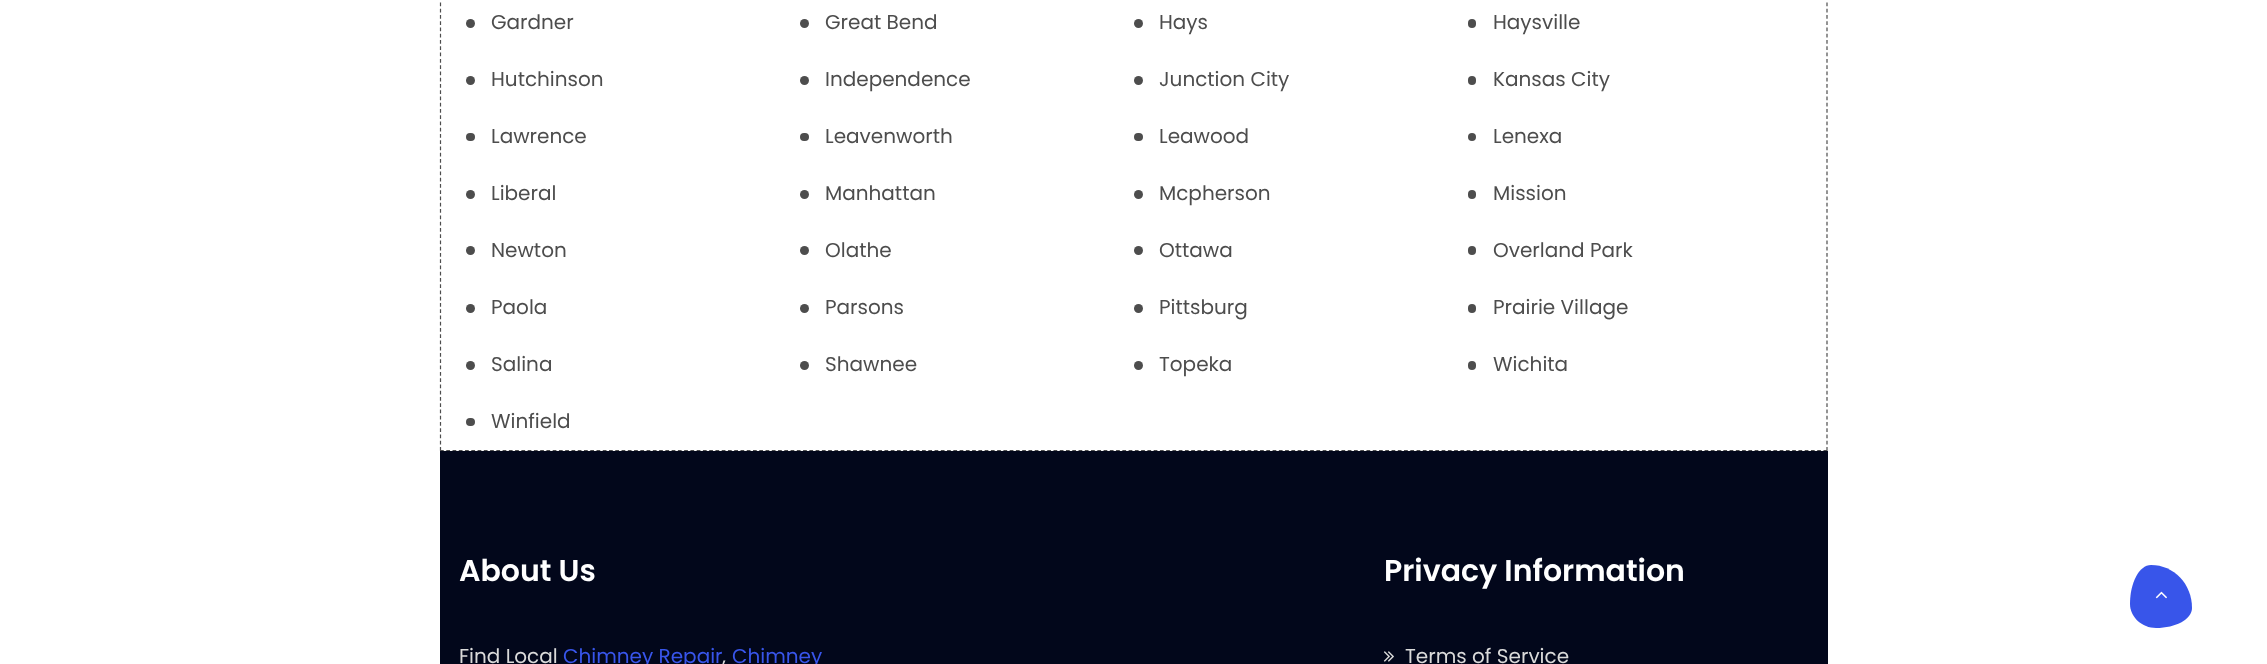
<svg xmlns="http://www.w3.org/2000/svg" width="2267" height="664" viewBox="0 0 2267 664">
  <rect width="100%" height="100%" fill="#fff"/>
  <path d="M1827-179V451" fill="none" stroke="#4d4d4d" stroke-width="1.2" stroke-dasharray="3.75 2.51"/>
  <path d="M440 450.5H1827.5" fill="none" stroke="#4d4d4d" stroke-width="1.2" stroke-dasharray="3.75 2.51"/>
  <path d="M440.5-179V451" fill="none" stroke="#4d4d4d" stroke-width="1.2" stroke-dasharray="3.75 2.51"/>
  <circle cx="470.5" cy="23.5" r="4.5" fill="#4d4d4d"/>
  <circle cx="804.5" cy="23.5" r="4.5" fill="#4d4d4d"/>
  <circle cx="1138.5" cy="23.5" r="4.5" fill="#4d4d4d"/>
  <rect x="1468" y="19" width="8" height="9" rx="4" fill="#4d4d4d"/>
  <circle cx="470.5" cy="80.5" r="4.5" fill="#4d4d4d"/>
  <circle cx="804.5" cy="80.5" r="4.5" fill="#4d4d4d"/>
  <circle cx="1138.5" cy="80.5" r="4.5" fill="#4d4d4d"/>
  <rect x="1468" y="76" width="8" height="9" rx="4" fill="#4d4d4d"/>
  <rect x="466" y="133" width="9" height="8" rx="4" fill="#4d4d4d"/>
  <rect x="800" y="133" width="9" height="8" rx="4" fill="#4d4d4d"/>
  <rect x="1134" y="133" width="9" height="8" rx="4" fill="#4d4d4d"/>
  <circle cx="1472" cy="137" r="4" fill="#4d4d4d"/>
  <circle cx="470.5" cy="194.5" r="4.5" fill="#4d4d4d"/>
  <circle cx="804.5" cy="194.5" r="4.5" fill="#4d4d4d"/>
  <circle cx="1138.5" cy="194.5" r="4.5" fill="#4d4d4d"/>
  <rect x="1468" y="190" width="8" height="9" rx="4" fill="#4d4d4d"/>
  <circle cx="470.5" cy="250.5" r="4.5" fill="#4d4d4d"/>
  <circle cx="804.5" cy="250.5" r="4.5" fill="#4d4d4d"/>
  <circle cx="1138.5" cy="250.5" r="4.5" fill="#4d4d4d"/>
  <rect x="1468" y="246" width="8" height="9" rx="4" fill="#4d4d4d"/>
  <circle cx="470.5" cy="308.5" r="4.5" fill="#4d4d4d"/>
  <circle cx="804.5" cy="308.5" r="4.5" fill="#4d4d4d"/>
  <circle cx="1138.5" cy="308.5" r="4.5" fill="#4d4d4d"/>
  <rect x="1468" y="304" width="8" height="9" rx="4" fill="#4d4d4d"/>
  <circle cx="470.5" cy="365.5" r="4.5" fill="#4d4d4d"/>
  <circle cx="804.5" cy="365.5" r="4.5" fill="#4d4d4d"/>
  <circle cx="1138.5" cy="365.5" r="4.5" fill="#4d4d4d"/>
  <rect x="1468" y="361" width="8" height="9" rx="4" fill="#4d4d4d"/>
  <rect x="466" y="418" width="9" height="8" rx="4" fill="#4d4d4d"/>
  <path d="M440 451h1388v213H440z" fill="#02071b"/>
  <image x="1383" y="651" width="11" height="11" href="img/1.png"/>
  <path d="M2151 565C2174 565 2192 584 2192 608C2192 619 2176 628 2156 628C2142 628 2130 617 2130 604C2130 583 2139 565 2151 565Z" fill="#3855ea"/>
  <image x="2155" y="591" width="12" height="8" href="img/2.png"/>
  <g font-family="Poppins" font-size="20" fill="#4d4d4d">
    <text x="491" y="29">Gardner</text>
    <text x="825" y="29">Great Bend</text>
    <text x="1159" y="29">Hays</text>
    <text x="1493" y="29">Haysville</text>
    <text x="491" y="86">Hutchinson</text>
    <text x="825" y="86">Independence</text>
    <text x="1159" y="86">Junction City</text>
    <text x="1493" y="86">Kansas City</text>
    <text x="491" y="143">Lawrence</text>
    <text x="825" y="143">Leavenworth</text>
    <text x="1159" y="143">Leawood</text>
    <text x="1493" y="143">Lenexa</text>
    <text x="491" y="200">Liberal</text>
    <text x="825" y="200">Manhattan</text>
    <text x="1159" y="200">Mcpherson</text>
    <text x="1493" y="200">Mission</text>
    <text x="491" y="257">Newton</text>
    <text x="825" y="257">Olathe</text>
    <text x="1159" y="257">Ottawa</text>
    <text x="1493" y="257">Overland Park</text>
    <text x="491" y="314">Paola</text>
    <text x="825" y="314">Parsons</text>
    <text x="1159" y="314">Pittsburg</text>
    <text x="1493" y="314">Prairie Village</text>
    <text x="491" y="371">Salina</text>
    <text x="825" y="371">Shawnee</text>
    <text x="1159" y="371">Topeka</text>
    <text x="1493" y="371">Wichita</text>
    <text x="491" y="428">Winfield</text>
  </g>
  <text x="459" y="581" font-family="Poppins" font-size="30" font-weight="600" fill="#fff">About Us</text>
  <text x="459" y="663" font-family="Poppins" font-size="20" fill="#dadada">Find Local</text>
  <text x="563" y="663" font-family="Poppins" font-size="20" fill="#3855ea">Chimney Repair</text>
  <text x="722" y="663" font-family="Poppins" font-size="20" fill="#dadada">,</text>
  <text x="732" y="663" font-family="Poppins" font-size="20" fill="#3855ea">Chimney</text>
  <text x="1384" y="581" font-family="Poppins" font-size="30" font-weight="600" fill="#fff">Privacy Information</text>
  <text x="1405" y="663" font-family="Poppins" font-size="20" fill="#dadada">Terms of Service</text>
</svg>
